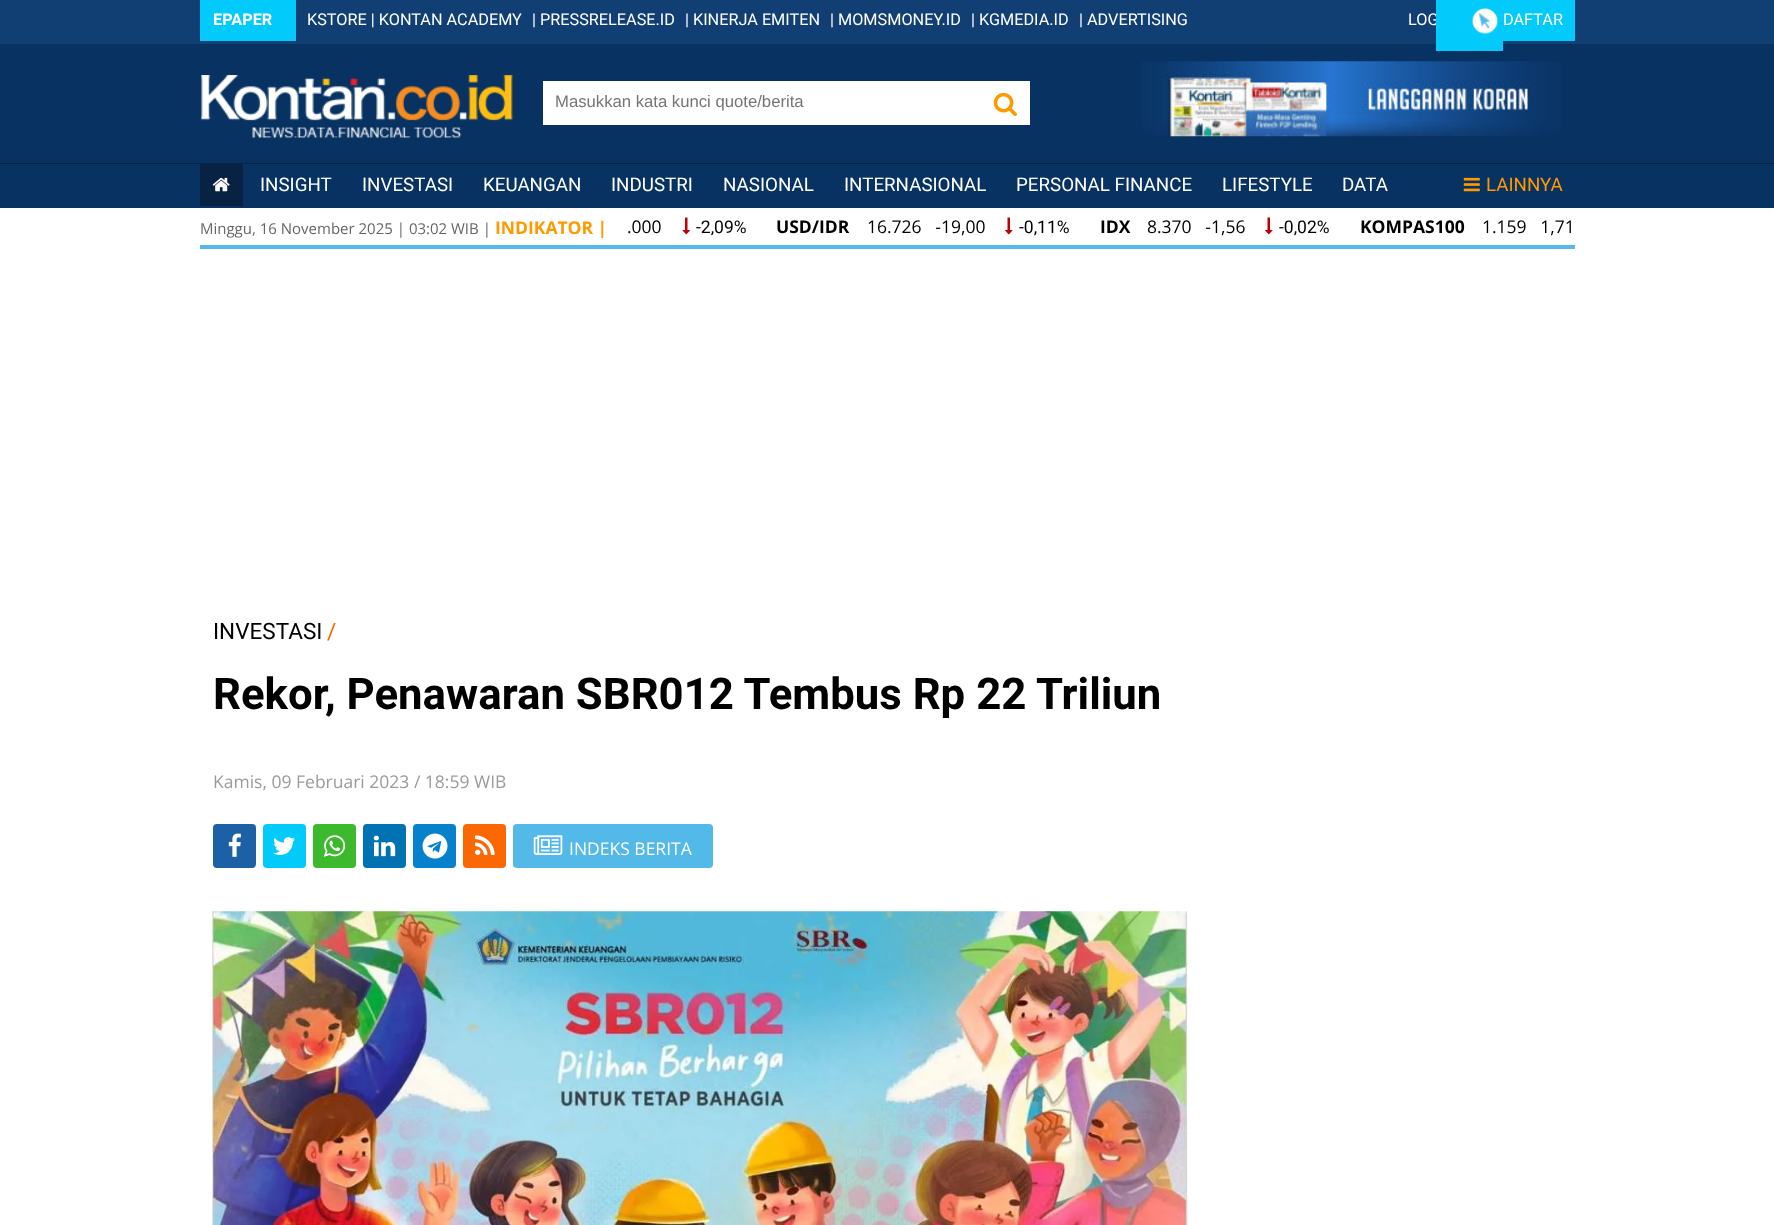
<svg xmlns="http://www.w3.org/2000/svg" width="1774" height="1225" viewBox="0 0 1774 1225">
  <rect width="100%" height="100%" fill="#fff"/>
  <path d="M0 44h1774v164H0z" fill="#083262"/>
  <path d="M0 0h1774v44H0z" fill="#123f73"/>
  <path d="M200 0h96v41H200z" fill="#02cafb"/>
  <path d="M1503 0h72v41H1503z" fill="#02cafb"/>
  <image x="201" y="75" width="312" height="63" href="img/2.png"/>
  <path d="M543 81h487v44H543z" fill="#fff"/>
  <image x="993" y="92" width="24" height="25" href="img/3.png"/>
  <image x="1142" y="61" width="419" height="76" href="img/4.png"/>
  <path d="M0 163h1774v1H0z" fill="#062343"/>
  <path d="M200 164h43v42H200z" fill="#072242"/>
  <image x="212" y="177" width="18" height="15" href="img/5.png"/>
  <image x="1463" y="177" width="17" height="15" href="img/6.png"/>
  <path d="M200 245h1375v4H200z" fill="#57b8eb"/>
  <image x="682" y="217" width="8" height="18" href="img/7.png"/>
  <image x="1005" y="217" width="8" height="18" href="img/8.png"/>
  <image x="1265" y="217" width="8" height="18" href="img/8.png"/>
  <rect x="213" y="824" width="43" height="44" rx="4" fill="#1c61a6"/>
  <image x="228" y="833" width="13" height="24" href="img/9.png"/>
  <rect x="263" y="824" width="43" height="44" rx="4" fill="#02cafb"/>
  <image x="273" y="837" width="22" height="18" href="img/10.png"/>
  <rect x="313" y="824" width="43" height="44" rx="4" fill="#3cb92d"/>
  <image x="323" y="835" width="23" height="22" href="img/11.png"/>
  <rect x="363" y="824" width="43" height="44" rx="4" fill="#0072b1"/>
  <image x="373" y="835" width="23" height="22" href="img/12.png"/>
  <rect x="413" y="824" width="43" height="44" rx="4" fill="#0781cc"/>
  <image x="422" y="833" width="26" height="26" href="img/13.png"/>
  <rect x="463" y="824" width="43" height="44" rx="4" fill="#fb6703"/>
  <image x="475" y="835" width="20" height="20" href="img/14.png"/>
  <rect x="513" y="824" width="200" height="44" rx="4" fill="#53b9e9"/>
  <image x="533" y="835" width="30" height="20" href="img/15.png"/>
  <image x="212" y="911" width="976" height="314" href="img/16.png"/>
  <text x="213" y="25" font-family="Roboto" font-size="16.25" font-weight="bold" fill="#fff">EPAPER</text>
  <g font-family="Roboto" font-size="16.25" fill="#fff">
    <text x="307" y="25">KSTORE | KONTAN ACADEMY</text>
    <text x="532" y="25">| PRESSRELEASE.ID</text>
    <text x="685" y="25">| KINERJA EMITEN</text>
    <text x="830" y="25">| MOMSMONEY.ID</text>
    <text x="971" y="25">| KGMEDIA.ID</text>
    <text x="1079" y="25">| ADVERTISING</text>
    <text x="1408" y="25">LOG</text>
  </g>
  <path d="M1436 0h67v51H1436z" fill="#02cafb"/>
  <image x="1471" y="8" width="28" height="26" href="img/1.png"/>
  <text x="1503" y="25" font-family="Roboto" font-size="16.25" fill="#fff">DAFTAR</text>
  <text x="555" y="107" font-family="Liberation Sans" font-size="16.7" fill="#757575">Masukkan kata kunci quote/berita</text>
  <g font-family="Roboto" font-size="18.75" fill="#fff">
    <text x="260" y="191">INSIGHT</text>
    <text x="362" y="191">INVESTASI</text>
    <text x="483" y="191">KEUANGAN</text>
    <text x="611" y="191">INDUSTRI</text>
    <text x="723" y="191">NASIONAL</text>
    <text x="844" y="191">INTERNASIONAL</text>
    <text x="1016" y="191">PERSONAL FINANCE</text>
    <text x="1222" y="191">LIFESTYLE</text>
    <text x="1342" y="191">DATA</text>
  </g>
  <text x="1486" y="191" font-family="Roboto" font-size="18.75" fill="#f90">LAINNYA</text>
  <text x="200" y="234" font-family="Open Sans" font-size="15" fill="#666">Minggu, 16 November 2025 | 03:02 WIB |</text>
  <text x="495" y="234" font-family="Open Sans" font-size="17.5" font-weight="bold" fill="#f90">INDIKATOR |</text>
  <text x="627" y="233" font-family="Open Sans" font-size="17.5" fill="#000">.000</text>
  <text x="696" y="233" font-family="Roboto" font-size="17.5" fill="#000">-2,09%</text>
  <text x="776" y="233" font-family="Open Sans" font-size="17.5" font-weight="bold" fill="#000">USD/IDR</text>
  <text x="867" y="233" font-family="Open Sans" font-size="17.5" fill="#000" xml:space="preserve">16.726   -19,00</text>
  <text x="1019" y="233" font-family="Roboto" font-size="17.5" fill="#000">-0,11%</text>
  <text x="1100" y="233" font-family="Open Sans" font-size="17.5" font-weight="bold" fill="#000">IDX</text>
  <text x="1147" y="233" font-family="Open Sans" font-size="17.5" fill="#000" xml:space="preserve">8.370   -1,56</text>
  <text x="1279" y="233" font-family="Roboto" font-size="17.5" fill="#000">-0,02%</text>
  <text x="1360" y="233" font-family="Open Sans" font-size="17.5" font-weight="bold" fill="#000">KOMPAS100</text>
  <text x="1482" y="233" font-family="Open Sans" font-size="17.5" fill="#000" xml:space="preserve">1.159   1,71</text>
  <text x="213" y="639" font-family="Roboto" font-size="22.5" fill="#000">INVESTASI</text>
  <text x="327" y="639" font-family="Roboto" font-size="22.5" fill="#f60">/</text>
  <text x="213" y="709" font-family="Roboto" font-size="43.75" font-weight="bold" fill="#000">Rekor, Penawaran SBR012 Tembus Rp 22 Triliun</text>
  <text x="213" y="788" font-family="Open Sans" font-size="17.5" fill="#9c9a9a">Kamis, 09 Februari 2023 / 18:59 WIB</text>
  <text x="569" y="855" font-family="Open Sans" font-size="17.5" fill="#fff">INDEKS BERITA</text>
</svg>
